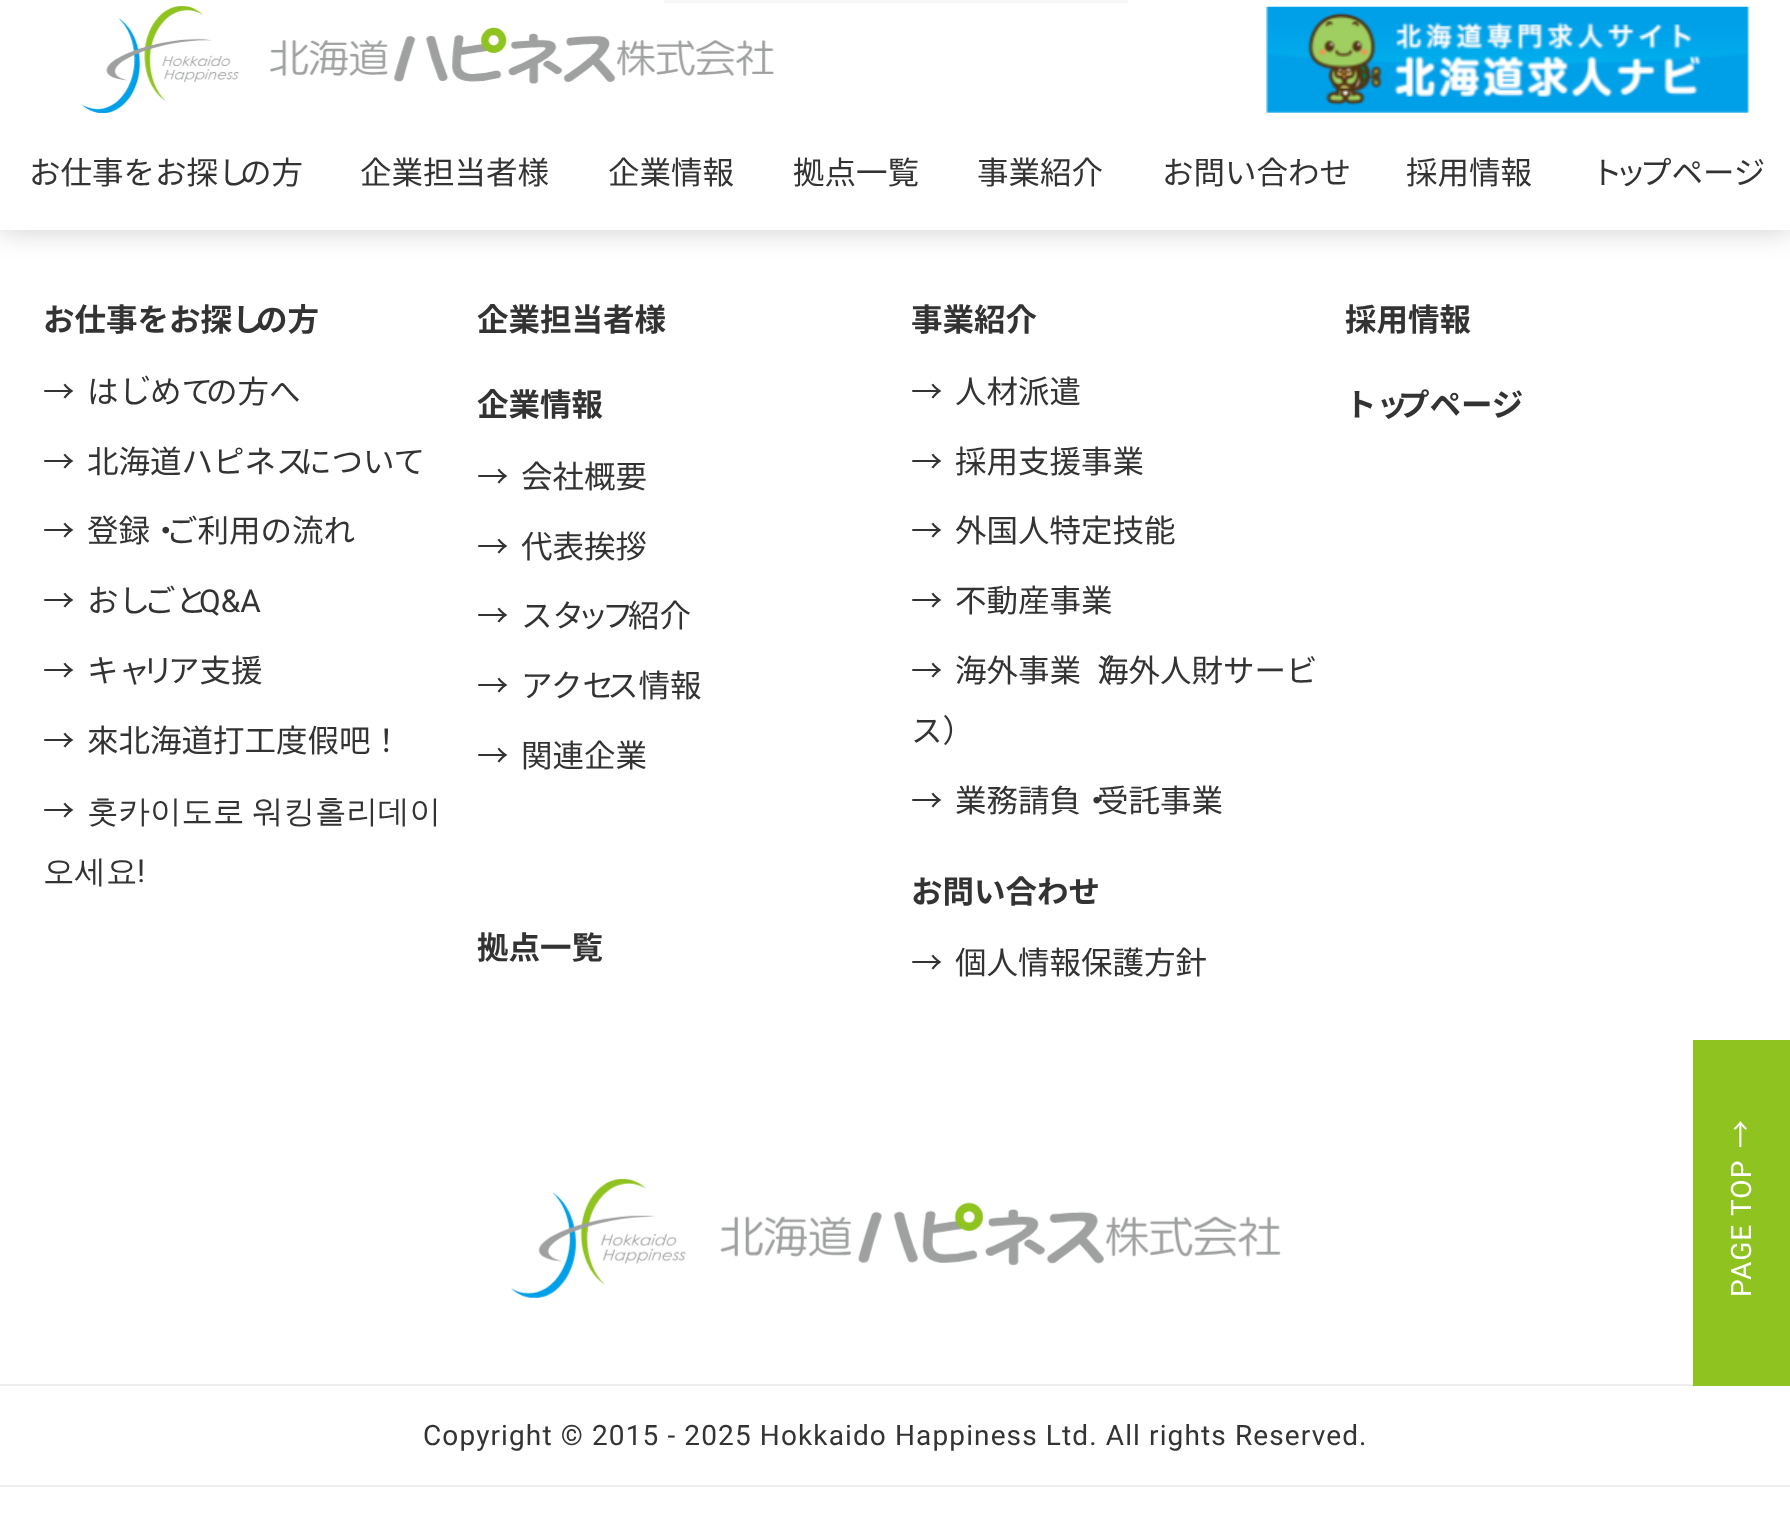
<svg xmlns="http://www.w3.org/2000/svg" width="1790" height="1530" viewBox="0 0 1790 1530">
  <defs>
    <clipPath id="clip1"><path d="M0 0H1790V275H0ZM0 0H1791V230H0Z" clip-rule="evenodd"/></clipPath>
  </defs>
  <rect width="100%" height="100%" fill="#fff"/>
  <path d="M663 -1h466v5H663z" fill="#5c5c5c" stroke="#dedede" stroke-width="2"/>
  <path d="M0 176h1790v2H0z" fill="#eee"/>
  <g clip-path="url(#clip1)">
    <path d="M0 0h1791v230H0z" fill="#00000033" filter="blur(14.5px)"/>
  </g>
  <path d="M0 0h1790v230H0z" fill="#fffffff2"/>
  <image x="81" y="6" width="693" height="107" href="img/1.png"/>
  <image x="1265" y="6" width="484" height="107" href="img/2.png"/>
  <path d="M0 1384h1693v2H0z" fill="#eee"/>
  <path d="M0 1485h1790v2H0z" fill="#eee"/>
  <path d="M1693 1040h97v346H1693z" fill="#8fc31f"/>
  <image x="511" y="1179" width="770" height="119" href="img/3.png"/>
  <g font-family="Noto Sans JP" font-size="31.5" fill="#333">
    <text x="29" y="184">お仕事をお探し</text>
    <text x="240" y="184">の方</text>
    <text x="360" y="184">企業担当者様</text>
    <text x="608" y="184">企業情報</text>
    <text x="793" y="184">拠点一覧</text>
    <text x="977" y="184">事業紹介</text>
    <text x="1162" y="184">お問い合わせ</text>
    <text x="1406" y="184">採用情報</text>
    <text x="1591" y="184">ト</text>
    <text x="1615" y="184">ッ</text>
    <text x="1640" y="184">プページ</text>
  </g>
  <text x="43" y="331" font-family="Noto Sans JP" font-size="31.5" font-weight="bold" fill="#333">お仕事をお探し</text>
  <text x="256" y="331" font-family="Noto Sans JP" font-size="31.5" font-weight="bold" fill="#333">の方</text>
  <g font-family="Noto Sans JP" font-size="31.5" fill="#333">
    <text x="43" y="403">→</text>
    <text x="87" y="403">はじめて</text>
    <text x="206" y="403">の方へ</text>
    <text x="43" y="473">→</text>
    <text x="87" y="473">北海道ハピネス</text>
    <text x="300" y="473">について</text>
    <text x="43" y="542">→</text>
    <text x="87" y="542">登録・</text>
    <text x="166" y="542">ご利用の流れ</text>
    <text x="43" y="612">→</text>
    <text x="87" y="612">おし</text>
    <text x="144" y="612">ごと</text>
  </g>
  <text x="199" y="612" font-family="Roboto" font-size="31.5" fill="#333">Q&amp;A</text>
  <g font-family="Noto Sans JP" font-size="31.5" fill="#333">
    <text x="43" y="682">→</text>
    <text x="87" y="682">キャ</text>
    <text x="142" y="682">リ</text>
    <text x="168" y="682">ア支援</text>
    <text x="43" y="752">→</text>
    <text x="87" y="752">來北海道打工度假吧！</text>
    <text x="43" y="822">→</text>
  </g>
  <g font-family="WenQuanYi Zen Hei" font-size="31.5" font-weight="500" fill="#333">
    <text x="87" y="822" word-spacing="-2">홋카이도로 워킹홀리데이</text>
    <text x="43" y="882">오세요</text>
  </g>
  <text x="137" y="882" font-family="Roboto" font-size="31.5" fill="#333">!</text>
  <g font-family="Noto Sans JP" font-size="31.5" font-weight="bold" fill="#333">
    <text x="477" y="331">企業担当者様</text>
    <text x="911" y="331">事業紹介</text>
  </g>
  <g font-family="Noto Sans JP" font-size="31.5" fill="#333">
    <text x="911" y="403">→</text>
    <text x="955" y="403">人材派遣</text>
    <text x="911" y="473">→</text>
    <text x="955" y="473">採用支援事業</text>
    <text x="911" y="542">→</text>
    <text x="955" y="542">外国人特定技能</text>
    <text x="911" y="612">→</text>
    <text x="955" y="612">不動産事業</text>
    <text x="911" y="682">→</text>
    <text x="955" y="682">海外事業（</text>
    <text x="1097" y="682">海外人財サービ</text>
    <text x="911" y="742">ス）</text>
    <text x="911" y="812">→</text>
    <text x="955" y="812">業務請負・</text>
    <text x="1097" y="812">受託事業</text>
  </g>
  <g font-family="Noto Sans JP" font-size="31.5" font-weight="bold" fill="#333">
    <text x="1345" y="331">採用情報</text>
    <text x="477" y="416">企業情報</text>
  </g>
  <g font-family="Noto Sans JP" font-size="31.5" fill="#333">
    <text x="477" y="488">→</text>
    <text x="521" y="488">会社概要</text>
    <text x="477" y="558">→</text>
    <text x="521" y="558">代表挨拶</text>
    <text x="477" y="627">→</text>
    <text x="521" y="627">スタ</text>
    <text x="577" y="627">ッ</text>
    <text x="602" y="627">フ</text>
    <text x="628" y="627">紹介</text>
    <text x="477" y="697">→</text>
    <text x="521" y="697">アクセ</text>
    <text x="607" y="697">ス情報</text>
    <text x="477" y="767">→</text>
    <text x="521" y="767">関連企業</text>
  </g>
  <g font-family="Noto Sans JP" font-size="31.5" font-weight="bold" fill="#333">
    <text x="1345" y="416">トッ</text>
    <text x="1398" y="416">プページ</text>
    <text x="477" y="959">拠点一覧</text>
    <text x="911" y="903">お問い合わせ</text>
  </g>
  <g font-family="Noto Sans JP" font-size="31.5" fill="#333">
    <text x="911" y="974">→</text>
    <text x="955" y="974">個人情報保護方針</text>
  </g>
  <text x="1751" y="1148" transform="rotate(-90 1751 1148)" font-family="Noto Sans JP" font-size="28" letter-spacing="1.12" fill="#fff">→</text>
  <text x="1751" y="1297" transform="rotate(-90 1751 1297)" font-family="Roboto" font-size="28" letter-spacing="1.12" fill="#fff">PAGE TOP</text>
  <text x="423" y="1445" font-family="Roboto" font-size="28" letter-spacing="1.12" fill="#333">Copyright © 2015 - 2025 Hokkaido Happiness Ltd. All rights Reserved.</text>
</svg>
